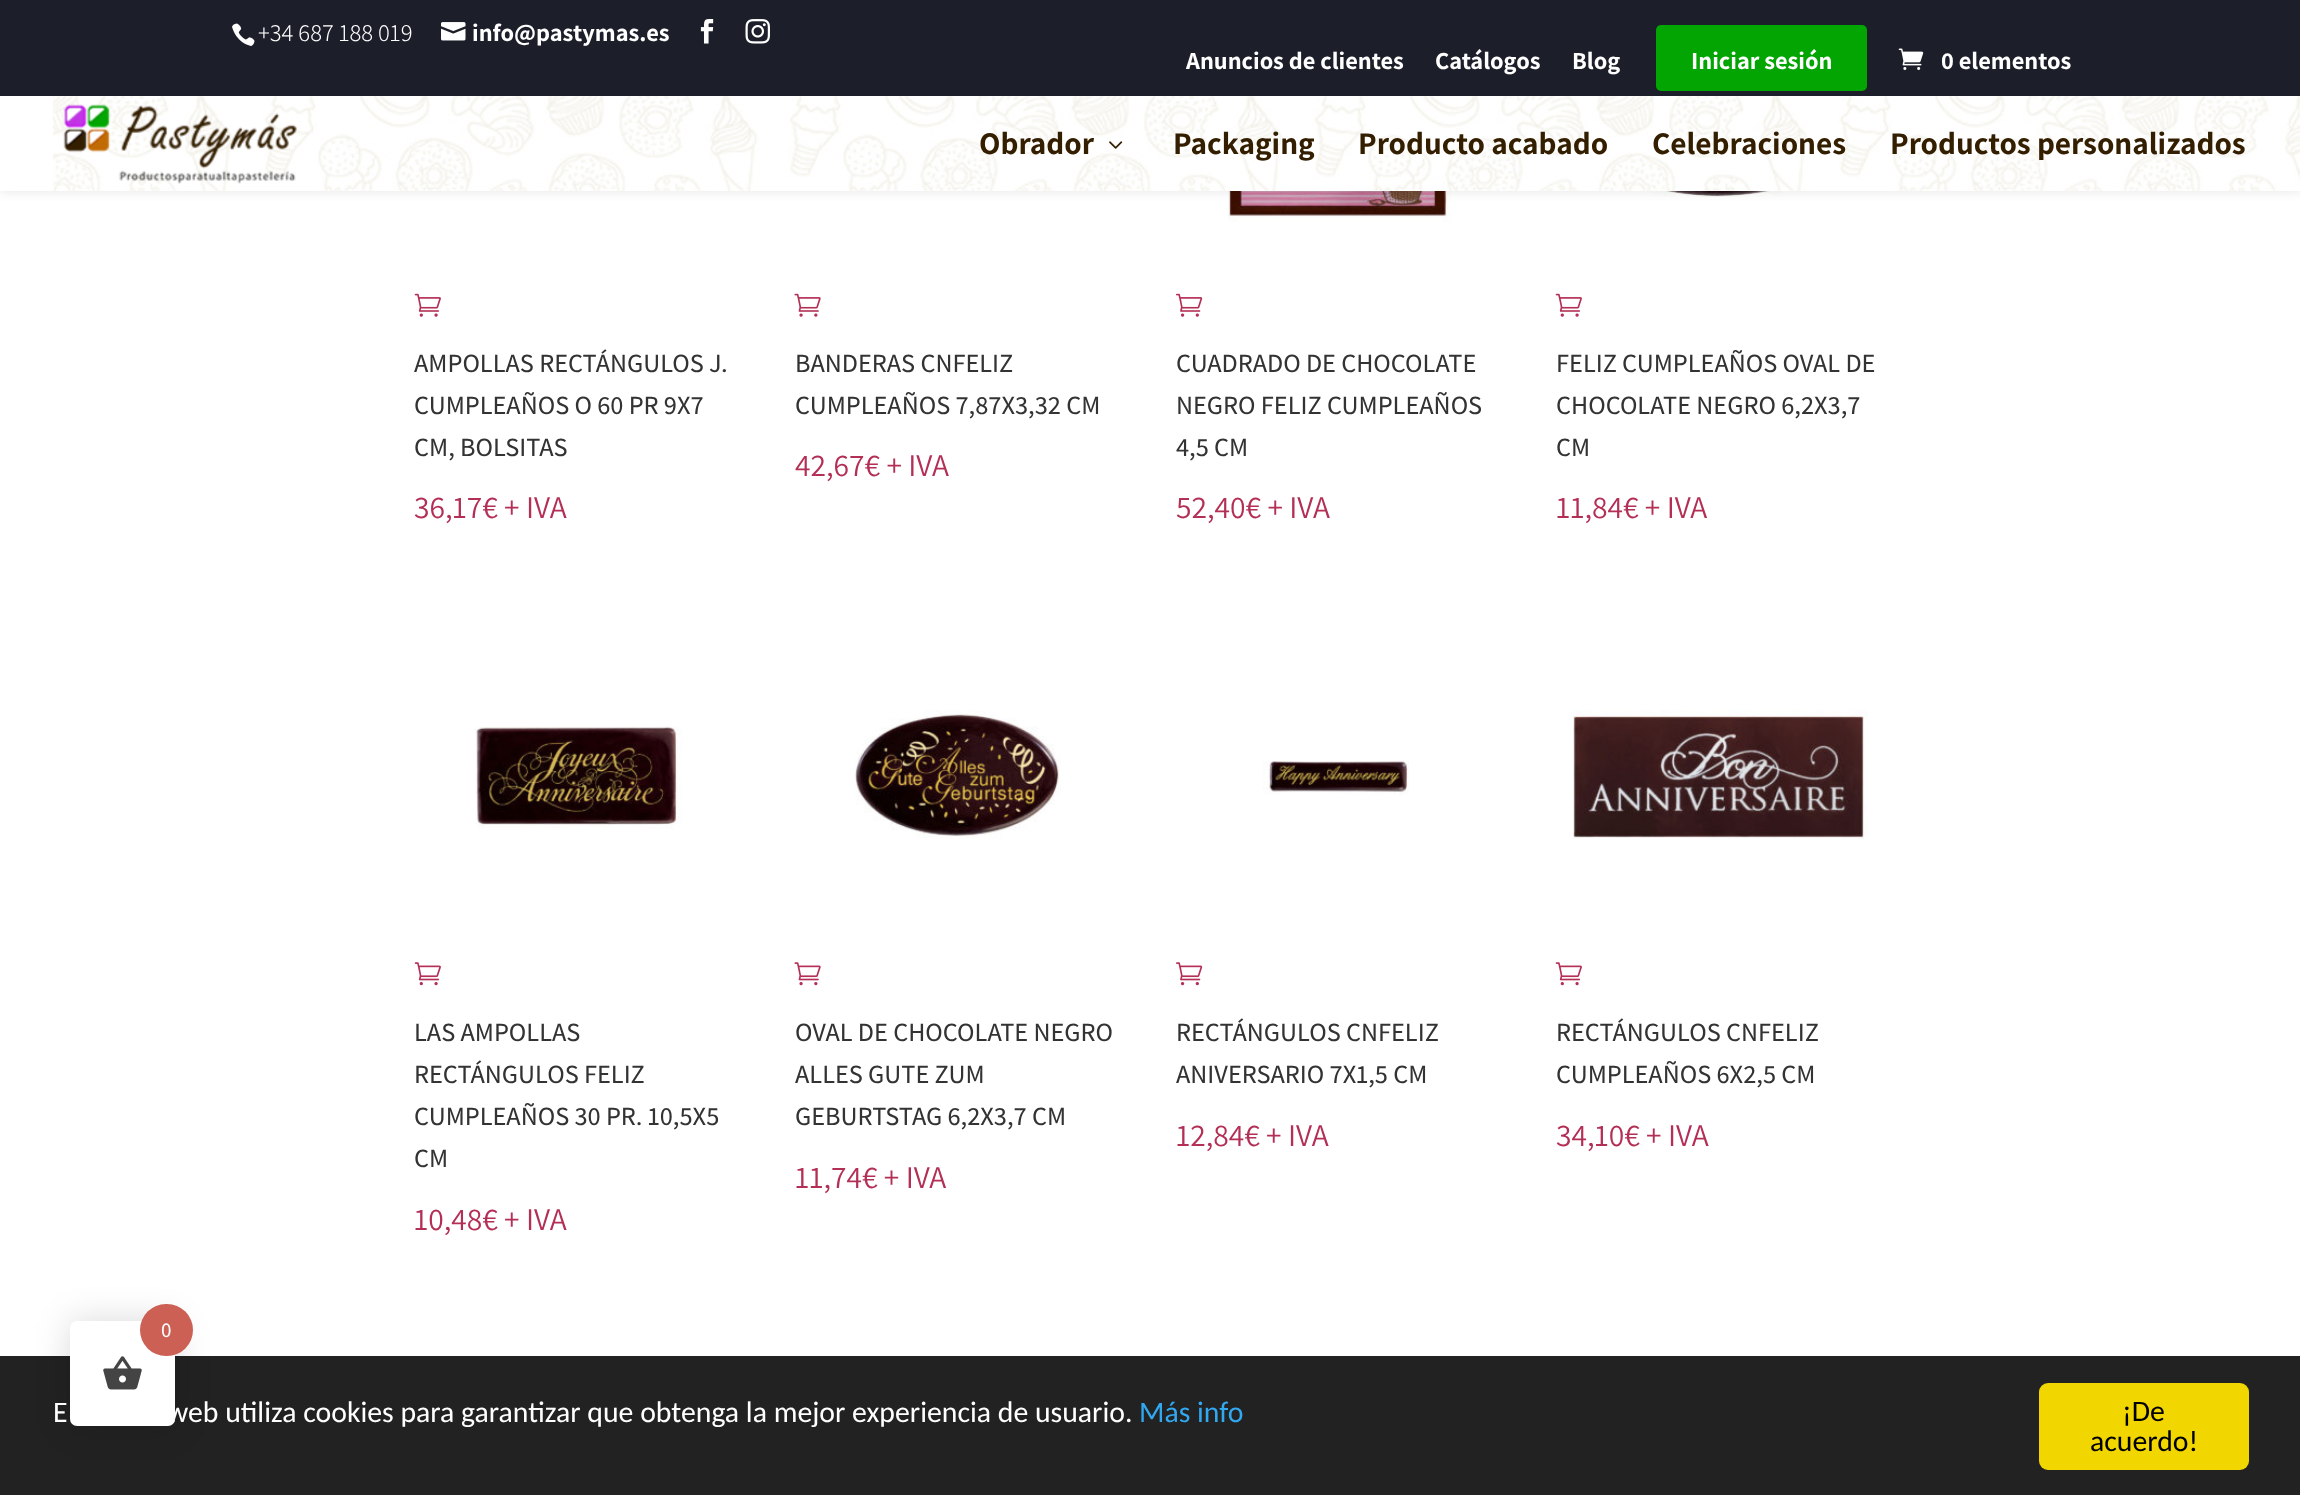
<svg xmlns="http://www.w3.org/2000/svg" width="2300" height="1495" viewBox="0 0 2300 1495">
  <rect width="100%" height="100%" fill="#fff"/>
  <image x="1228" y="191" width="224" height="31" href="img/11.png"/>
  <image x="1564" y="191" width="313" height="6" href="img/13.png"/>
  <path d="M0 96h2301v95H0z" fill="#0000001a" filter="blur(6px)"/>
  <path d="M0 0h2300v96H0z" fill="#1c1e29"/>
  <image x="232" y="23" width="23" height="23" href="img/1.png"/>
  <image x="441" y="22" width="25" height="19" href="img/2.png"/>
  <image x="700" y="19" width="14" height="25" href="img/3.png"/>
  <image x="745" y="19" width="25" height="25" href="img/4.png"/>
  <rect x="1656" y="25" width="211" height="66" rx="5" fill="#02a502"/>
  <image x="1898" y="48" width="26" height="22" href="img/5.png"/>
  <path d="M0 96h2300v95H0z" fill="#fff"/>
  <image x="53" y="96" width="2247" height="95" href="img/6.png"/>
  <image x="63" y="104" width="234" height="80" href="img/7.png"/>
  <image x="1109" y="141" width="14" height="8" href="img/8.png"/>
  <image x="414" y="293" width="27" height="24" href="img/9.png"/>
  <image x="794" y="293" width="27" height="24" href="img/10.png"/>
  <image x="1176" y="293" width="27" height="24" href="img/12.png"/>
  <image x="1555" y="293" width="27" height="24" href="img/9.png"/>
  <image x="475" y="726" width="207" height="103" href="img/14.png"/>
  <image x="414" y="962" width="27" height="24" href="img/15.png"/>
  <image x="855" y="710" width="206" height="129" href="img/16.png"/>
  <image x="794" y="962" width="27" height="24" href="img/17.png"/>
  <image x="1263" y="761" width="146" height="34" href="img/18.png"/>
  <image x="1176" y="962" width="27" height="24" href="img/19.png"/>
  <image x="1573" y="710" width="295" height="129" href="img/20.png"/>
  <image x="1555" y="962" width="27" height="24" href="img/15.png"/>
  <path d="M0 1356h2300v139H0z" fill="#222"/>
  <rect x="70" y="1321" width="105" height="105" rx="7" fill="#00000026" filter="blur(17.5px)"/>
  <rect x="70" y="1321" width="105" height="105" rx="7" fill="#fff"/>
  <rect x="140" y="1304" width="53" height="52" rx="26" fill="#cc6055"/>
  <image x="103" y="1356" width="39" height="34" href="img/21.png"/>
  <rect x="2039" y="1383" width="210" height="87" rx="9" fill="#f1d600"/>
  <text x="258" y="41" font-family="Assistant" font-size="24.5" font-weight="300" fill="#fff">+34 687 188 019</text>
  <g font-family="Assistant" font-size="24.5" font-weight="bold" fill="#fff">
    <text x="472" y="41">info@pastymas.es</text>
    <text x="1186" y="69">Anuncios de clientes</text>
    <text x="1435" y="69">Catálogos</text>
    <text x="1572" y="69">Blog</text>
    <text x="1691" y="69">Iniciar sesión</text>
    <text x="1941" y="69">0 elementos</text>
  </g>
  <g font-family="Assistant" font-size="31.5" font-weight="bold" fill="#331e00">
    <text x="979" y="154">Obrador</text>
    <text x="1173" y="154">Packaging</text>
    <text x="1358" y="154">Producto acabado</text>
    <text x="1652" y="154">Celebraciones</text>
    <text x="1890" y="154">Productos personalizados</text>
  </g>
  <g font-family="Assistant" font-size="26.25" font-weight="500" fill="#333">
    <text x="414" y="372">AMPOLLAS RECTÁNGULOS J.</text>
    <text x="414" y="414">CUMPLEAÑOS O 60 PR 9X7</text>
    <text x="414" y="456">CM, BOLSITAS</text>
  </g>
  <text x="414" y="518" font-family="Assistant" font-size="31.5" fill="#b32f55">36,17€ + IVA</text>
  <g font-family="Assistant" font-size="26.25" font-weight="500" fill="#333">
    <text x="795" y="372">BANDERAS CNFELIZ</text>
    <text x="795" y="414">CUMPLEAÑOS 7,87X3,32 CM</text>
  </g>
  <text x="795" y="476" font-family="Assistant" font-size="31.5" fill="#b32f55">42,67€ + IVA</text>
  <g font-family="Assistant" font-size="26.25" font-weight="500" fill="#333">
    <text x="1176" y="372">CUADRADO DE CHOCOLATE</text>
    <text x="1176" y="414">NEGRO FELIZ CUMPLEAÑOS</text>
    <text x="1176" y="456">4,5 CM</text>
  </g>
  <text x="1176" y="518" font-family="Assistant" font-size="31.5" fill="#b32f55">52,40€ + IVA</text>
  <g font-family="Assistant" font-size="26.25" font-weight="500" fill="#333">
    <text x="1556" y="372">FELIZ CUMPLEAÑOS OVAL DE</text>
    <text x="1556" y="414">CHOCOLATE NEGRO 6,2X3,7</text>
    <text x="1556" y="456">CM</text>
  </g>
  <text x="1556" y="518" font-family="Assistant" font-size="31.5" fill="#b32f55">11,84€ + IVA</text>
  <g font-family="Assistant" font-size="26.25" font-weight="500" fill="#333">
    <text x="414" y="1041">LAS AMPOLLAS</text>
    <text x="414" y="1083">RECTÁNGULOS FELIZ</text>
    <text x="414" y="1125">CUMPLEAÑOS 30 PR. 10,5X5</text>
    <text x="414" y="1167">CM</text>
  </g>
  <text x="414" y="1230" font-family="Assistant" font-size="31.5" fill="#b32f55">10,48€ + IVA</text>
  <g font-family="Assistant" font-size="26.25" font-weight="500" fill="#333">
    <text x="795" y="1041">OVAL DE CHOCOLATE NEGRO</text>
    <text x="795" y="1083">ALLES GUTE ZUM</text>
    <text x="795" y="1125">GEBURTSTAG 6,2X3,7 CM</text>
  </g>
  <text x="795" y="1188" font-family="Assistant" font-size="31.5" fill="#b32f55">11,74€ + IVA</text>
  <g font-family="Assistant" font-size="26.25" font-weight="500" fill="#333">
    <text x="1176" y="1041">RECTÁNGULOS CNFELIZ</text>
    <text x="1176" y="1083">ANIVERSARIO 7X1,5 CM</text>
  </g>
  <text x="1176" y="1146" font-family="Assistant" font-size="31.5" fill="#b32f55">12,84€ + IVA</text>
  <g font-family="Assistant" font-size="26.25" font-weight="500" fill="#333">
    <text x="1556" y="1041">RECTÁNGULOS CNFELIZ</text>
    <text x="1556" y="1083">CUMPLEAÑOS 6X2,5 CM</text>
  </g>
  <text x="1556" y="1146" font-family="Assistant" font-size="31.5" fill="#b32f55">34,10€ + IVA</text>
  <text x="161" y="1337" font-family="Assistant" font-size="21" font-weight="500" fill="#fff">0</text>
  <g font-family="Carlito" font-size="29.75" fill="#fff">
    <text x="53" y="1422">E</text>
    <text x="167" y="1422">web utiliza cookies para garantizar que obtenga la mejor experiencia de usuario.</text>
  </g>
  <text x="1139" y="1422" font-family="Carlito" font-size="29.75" fill="#31a8f0">Más info</text>
  <g font-family="Carlito" font-size="29.75" fill="#000">
    <text x="2122" y="1421">¡De</text>
    <text x="2090" y="1451">acuerdo!</text>
  </g>
</svg>
